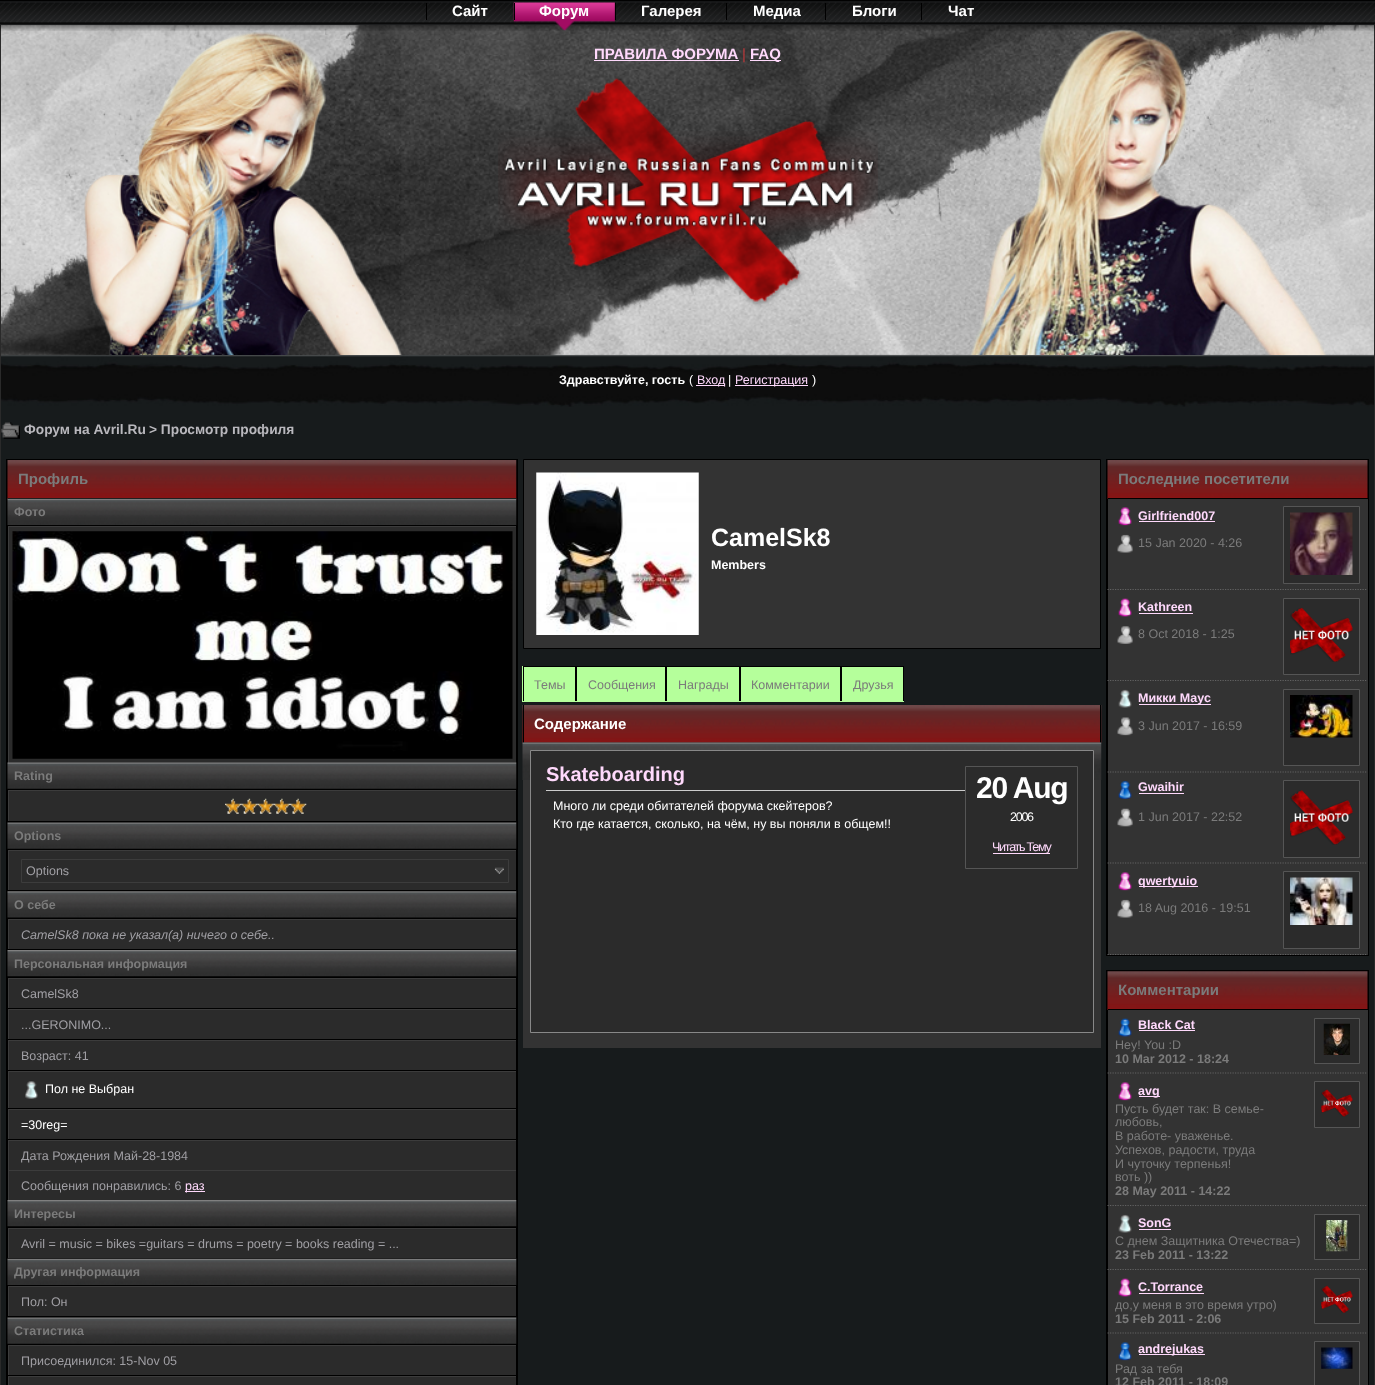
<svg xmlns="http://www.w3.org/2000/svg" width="1375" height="1385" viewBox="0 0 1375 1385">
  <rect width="100%" height="100%" fill="#171b1c"/>
  <image x="1" y="25" width="1373" height="382" href="img/1.png"/>
  <path d="M1374 25h1v1360H1374z" fill="#2a2a2a"/>
  <path d="M0 25h1v1360H0z" fill="#2a2a2a"/>
  <image x="970" y="28" width="357" height="327" href="img/5.png"/>
  <image x="0" y="0" width="1375" height="31" href="img/2.png"/>
  <path d="M426 3h1v17H426z" fill="#000"/>
  <image x="513" y="2" width="102" height="29" href="img/3.png"/>
  <path d="M514 3h1v17H514z" fill="#000"/>
  <path d="M615 3h1v17H615z" fill="#000"/>
  <path d="M726 3h1v17H726z" fill="#000"/>
  <path d="M825 3h1v17H825z" fill="#000"/>
  <path d="M921 3h1v17H921z" fill="#000"/>
  <image x="84" y="32" width="318" height="323" href="img/4.png"/>
  <path d="M594 60h145v1H594z" fill="#ffd9fc"/>
  <path d="M750 60h31v1H750z" fill="#ffd9fc"/>
  <image x="498" y="78" width="380" height="229" href="img/6.png"/>
  <path d="M696 385h29v1H696z" fill="#ffd9fc"/>
  <path d="M735 385h73v1H735z" fill="#ffd9fc"/>
  <image x="1" y="422" width="19" height="17" href="img/7.png"/>
  <path d="M6 459h512v926H6z" fill="#000"/>
  <image x="7" y="460" width="510" height="39" href="img/8.png"/>
  <path d="M8 498h508v1H8z" fill="#000"/>
  <image x="7" y="498" width="510" height="27" href="img/9.png"/>
  <path d="M9 527h507v236H9z" fill="#2b2b2b"/>
  <path d="M8 526h508v1H8z" fill="#3c3c3c"/>
  <path d="M8 526h1v237H8z" fill="#3c3c3c"/>
  <image x="12" y="531" width="501" height="228" href="img/10.png"/>
  <image x="7" y="762" width="510" height="27" href="img/11.png"/>
  <path d="M9 791h507v30H9z" fill="#2b2b2b"/>
  <path d="M8 790h508v1H8z" fill="#3c3c3c"/>
  <path d="M8 790h1v31H8z" fill="#3c3c3c"/>
  <image x="225" y="798" width="17" height="16" href="img/12.png"/>
  <image x="241" y="798" width="17" height="16" href="img/13.png"/>
  <image x="257" y="798" width="17" height="16" href="img/14.png"/>
  <image x="273" y="798" width="17" height="16" href="img/15.png"/>
  <image x="290" y="798" width="17" height="16" href="img/16.png"/>
  <image x="7" y="822" width="510" height="27" href="img/17.png"/>
  <path d="M9 851h507v39H9z" fill="#2b2b2b"/>
  <path d="M8 850h508v1H8z" fill="#3c3c3c"/>
  <path d="M8 850h1v40H8z" fill="#3c3c3c"/>
  <image x="494" y="867" width="10" height="7" href="img/18.png"/>
  <path d="M21.5 859.5h487v23H21.5z" fill="none" stroke="#3c3c3c"/>
  <image x="7" y="891" width="510" height="27" href="img/19.png"/>
  <path d="M9 920h507v29H9z" fill="#2b2b2b"/>
  <path d="M8 919h508v1H8z" fill="#3c3c3c"/>
  <path d="M8 919h1v30H8z" fill="#3c3c3c"/>
  <image x="7" y="950" width="510" height="27" href="img/20.png"/>
  <path d="M9 979h507v29H9z" fill="#2b2b2b"/>
  <path d="M8 978h508v1H8z" fill="#3c3c3c"/>
  <path d="M8 978h1v30H8z" fill="#3c3c3c"/>
  <path d="M9 1010h507v29H9z" fill="#2b2b2b"/>
  <path d="M8 1009h508v1H8z" fill="#3c3c3c"/>
  <path d="M8 1009h1v30H8z" fill="#3c3c3c"/>
  <path d="M9 1041h507v29H9z" fill="#2b2b2b"/>
  <path d="M8 1040h508v1H8z" fill="#3c3c3c"/>
  <path d="M8 1040h1v30H8z" fill="#3c3c3c"/>
  <path d="M9 1072h507v36H9z" fill="#2b2b2b"/>
  <path d="M8 1071h508v1H8z" fill="#3c3c3c"/>
  <path d="M8 1071h1v37H8z" fill="#3c3c3c"/>
  <image x="25" y="1081" width="13" height="18" href="img/21.png"/>
  <path d="M9 1110h507v29H9z" fill="#2b2b2b"/>
  <path d="M8 1109h508v1H8z" fill="#3c3c3c"/>
  <path d="M8 1109h1v30H8z" fill="#3c3c3c"/>
  <path d="M9 1141h507v29H9z" fill="#2b2b2b"/>
  <path d="M8 1140h508v1H8z" fill="#3c3c3c"/>
  <path d="M8 1140h1v30H8z" fill="#3c3c3c"/>
  <path d="M9 1171h507v29H9z" fill="#2b2b2b"/>
  <path d="M8 1170h508v1H8z" fill="#3c3c3c"/>
  <path d="M8 1170h1v30H8z" fill="#3c3c3c"/>
  <path d="M185 1191h20v1H185z" fill="#ffd9fc"/>
  <image x="7" y="1200" width="510" height="27" href="img/22.png"/>
  <path d="M9 1229h507v29H9z" fill="#2b2b2b"/>
  <path d="M8 1228h508v1H8z" fill="#3c3c3c"/>
  <path d="M8 1228h1v30H8z" fill="#3c3c3c"/>
  <image x="7" y="1258" width="510" height="27" href="img/23.png"/>
  <path d="M9 1287h507v29H9z" fill="#2b2b2b"/>
  <path d="M8 1286h508v1H8z" fill="#3c3c3c"/>
  <path d="M8 1286h1v30H8z" fill="#3c3c3c"/>
  <image x="7" y="1317" width="510" height="27" href="img/24.png"/>
  <path d="M9 1346h507v29H9z" fill="#2b2b2b"/>
  <path d="M8 1345h508v1H8z" fill="#3c3c3c"/>
  <path d="M8 1345h1v30H8z" fill="#3c3c3c"/>
  <path d="M9 1377h507v8H9z" fill="#2b2b2b"/>
  <path d="M8 1376h508v1H8z" fill="#3c3c3c"/>
  <path d="M8 1376h1v9H8z" fill="#3c3c3c"/>
  <path d="M523.5 459.5h577v189H523.5z" fill="#333" stroke="#000"/>
  <image x="536" y="472" width="163" height="163" href="img/25.png"/>
  <path d="M522 666h54v36H522z" fill="#b5ff9b"/>
  <path d="M523 666h381v1H523z" fill="#000"/>
  <path d="M575 666h1v35H575z" fill="#000"/>
  <path d="M523 666h1v35H523z" fill="#000"/>
  <path d="M576 667h328v35H576z" fill="#b5ff9b"/>
  <path d="M665 666h2v35H665z" fill="#000"/>
  <path d="M576 666h1v35H576z" fill="#000"/>
  <path d="M739 666h2v35H739z" fill="#000"/>
  <path d="M840 666h2v35H840z" fill="#000"/>
  <path d="M903 666h1v35H903z" fill="#000"/>
  <image x="522" y="705" width="580" height="38" href="img/26.png"/>
  <path d="M1100 705h1v38H1100z" fill="#000"/>
  <path d="M523 705h1v38H523z" fill="#000"/>
  <path d="M523 780h578v268H523z" fill="#333"/>
  <image x="522" y="742" width="580" height="38" href="img/27.png"/>
  <path d="M530.5 750.5h563v282H530.5z" fill="#2b2b2b" stroke="#888"/>
  <path d="M546 790h419v1H546z" fill="#ccc"/>
  <path d="M965.5 766.5h112v102H965.5z" fill="none" stroke="#555"/>
  <path d="M993 853h57v1H993z" fill="#ffd9fc"/>
  <path d="M1106 459h263v497H1106z" fill="#000"/>
  <image x="1107" y="460" width="261" height="39" href="img/28.png"/>
  <path d="M1108 498h260v1H1108z" fill="#000"/>
  <path d="M1108 499h260v91H1108z" fill="#333"/>
  <path d="M1107.5 589.5H1367.5" fill="none" stroke="#626262" stroke-width="1.2" stroke-dasharray="1.25 1.25"/>
  <image x="1118" y="507" width="14" height="19" href="img/29.png"/>
  <path d="M1139 521h76v1H1139z" fill="#ffd9fc"/>
  <path d="M1283.5 506.5h76v77H1283.5z" fill="#2b2b2b" stroke="#555"/>
  <image x="1290" y="512" width="63" height="63" href="img/30.png"/>
  <image x="1117" y="534" width="16" height="19" href="img/31.png"/>
  <path d="M1108 590h260v91H1108z" fill="#333"/>
  <path d="M1107.5 680.5H1367.5" fill="none" stroke="#626262" stroke-width="1.2" stroke-dasharray="1.25 1.25"/>
  <image x="1118" y="598" width="14" height="19" href="img/32.png"/>
  <path d="M1139 613h54v1H1139z" fill="#ffd9fc"/>
  <path d="M1283.5 598.5h76v76H1283.5z" fill="#2b2b2b" stroke="#555"/>
  <image x="1290" y="608" width="63" height="54" href="img/33.png"/>
  <image x="1117" y="626" width="16" height="18" href="img/34.png"/>
  <path d="M1108 681h260v274H1108z" fill="#333"/>
  <path d="M1107.5 772H1367.5" fill="none" stroke="#626262" stroke-width="1.2" stroke-dasharray="1.25 1.25"/>
  <image x="1118" y="689" width="14" height="19" href="img/35.png"/>
  <path d="M1139 704h72v1H1139z" fill="#ffd9fc"/>
  <path d="M1283.5 689.5h76v76H1283.5z" fill="#2b2b2b" stroke="#555"/>
  <image x="1290" y="695" width="63" height="43" href="img/36.png"/>
  <image x="1117" y="717" width="16" height="19" href="img/37.png"/>
  <path d="M1107.5 863H1367.5" fill="none" stroke="#626262" stroke-width="1.2" stroke-dasharray="1.25 1.25"/>
  <image x="1118" y="781" width="14" height="18" href="img/38.png"/>
  <path d="M1139 793h45v1H1139z" fill="#ffd9fc"/>
  <path d="M1283.5 780.5h76v77H1283.5z" fill="#2b2b2b" stroke="#555"/>
  <image x="1290" y="790" width="63" height="55" href="img/39.png"/>
  <image x="1117" y="808" width="16" height="19" href="img/40.png"/>
  <path d="M1107.5 954.5H1367.5" fill="none" stroke="#626262" stroke-width="1.2" stroke-dasharray="1.25 1.25"/>
  <image x="1118" y="872" width="14" height="19" href="img/29.png"/>
  <path d="M1139 886h59v1H1139z" fill="#ffd9fc"/>
  <path d="M1283.5 871.5h76v77H1283.5z" fill="#2b2b2b" stroke="#555"/>
  <image x="1290" y="877" width="63" height="48" href="img/41.png"/>
  <image x="1117" y="899" width="16" height="19" href="img/31.png"/>
  <path d="M1106 970h263v415H1106z" fill="#000"/>
  <image x="1107" y="971" width="261" height="39" href="img/42.png"/>
  <path d="M1108 1009h260v1H1108z" fill="#000"/>
  <path d="M1108 1010h260v196H1108z" fill="#333"/>
  <path d="M1107.5 1073H1367.5" fill="none" stroke="#626262" stroke-width="1.2" stroke-dasharray="1.25 1.25"/>
  <image x="1118" y="1018" width="14" height="19" href="img/43.png"/>
  <path d="M1139 1030h56v1H1139z" fill="#ffd9fc"/>
  <path d="M1314.5 1018.5h45v45H1314.5z" fill="#2b2b2b" stroke="#555"/>
  <image x="1323" y="1023" width="27" height="32" href="img/44.png"/>
  <path d="M1107.5 1205.5H1367.5" fill="none" stroke="#626262" stroke-width="1.2" stroke-dasharray="1.25 1.25"/>
  <image x="1118" y="1082" width="14" height="19" href="img/29.png"/>
  <path d="M1139 1096h21v1H1139z" fill="#ffd9fc"/>
  <path d="M1314.5 1081.5h45v46H1314.5z" fill="#2b2b2b" stroke="#555"/>
  <image x="1321" y="1089" width="32" height="28" href="img/45.png"/>
  <path d="M1108 1206h260v64H1108z" fill="#333"/>
  <path d="M1107.5 1269.5H1367.5" fill="none" stroke="#626262" stroke-width="1.2" stroke-dasharray="1.25 1.25"/>
  <image x="1118" y="1214" width="14" height="19" href="img/35.png"/>
  <path d="M1139 1229h32v1H1139z" fill="#ffd9fc"/>
  <path d="M1314.5 1214.5h45v45H1314.5z" fill="#2b2b2b" stroke="#555"/>
  <image x="1326" y="1220" width="22" height="32" href="img/46.png"/>
  <path d="M1108 1270h260v115H1108z" fill="#333"/>
  <path d="M1107.5 1333H1367.5" fill="none" stroke="#626262" stroke-width="1.2" stroke-dasharray="1.25 1.25"/>
  <image x="1118" y="1278" width="14" height="19" href="img/32.png"/>
  <path d="M1139 1293h65v1H1139z" fill="#ffd9fc"/>
  <path d="M1314.5 1278.5h45v45H1314.5z" fill="#2b2b2b" stroke="#555"/>
  <image x="1321" y="1285" width="32" height="28" href="img/47.png"/>
  <image x="1118" y="1342" width="14" height="19" href="img/48.png"/>
  <path d="M1139 1354h66v1H1139z" fill="#ffd9fc"/>
  <path d="M1314.5 1341.5h45v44H1314.5z" fill="#2b2b2b" stroke="#555"/>
  <image x="1321" y="1347" width="32" height="22" href="img/49.png"/>
  <g font-family="Liberation Sans" font-size="15" font-weight="bold" fill="#fff">
    <text x="452" y="16">Сайт</text>
    <text x="539" y="16">Форум</text>
    <text x="641" y="16">Галерея</text>
    <text x="753" y="16">Медиа</text>
    <text x="852" y="16">Блоги</text>
    <text x="948" y="16">Чат</text>
  </g>
  <text x="594" y="59" font-family="Liberation Sans" font-size="15" font-weight="bold" fill="#ffd9fc">ПРАВИЛА ФОРУМА</text>
  <text x="742" y="59" font-family="Liberation Sans" font-size="15" fill="#bc383a">|</text>
  <text x="750" y="59" font-family="Liberation Sans" font-size="15" font-weight="bold" fill="#ffd9fc">FAQ</text>
  <text x="559" y="384" font-family="Liberation Sans" font-size="12.5" font-weight="bold" fill="#fff">Здравствуйте, гость</text>
  <text x="689" y="384" font-family="Liberation Sans" font-size="12.5" fill="#fff">(</text>
  <text x="697" y="384" font-family="Liberation Sans" font-size="12.5" fill="#ffd9fc">Вход</text>
  <text x="728" y="384" font-family="Liberation Sans" font-size="12.5" fill="#fff">|</text>
  <text x="735" y="384" font-family="Liberation Sans" font-size="12.5" fill="#ffd9fc">Регистрация</text>
  <text x="812" y="384" font-family="Liberation Sans" font-size="12.5" fill="#fff">)</text>
  <g font-family="Liberation Sans" font-size="13.75" font-weight="bold" fill="#b9b8bd">
    <text x="24" y="434">Форум на Avril.Ru</text>
    <text x="149" y="434">&gt; Просмотр профиля</text>
  </g>
  <text x="18" y="484" font-family="Liberation Sans" font-size="15" font-weight="bold" fill="#7b7b7b">Профиль</text>
  <g font-family="Liberation Sans" font-size="12.5" font-weight="bold" fill="#7b7b7b">
    <text x="14" y="516">Фото</text>
    <text x="14" y="780">Rating</text>
    <text x="14" y="840">Options</text>
  </g>
  <text x="26" y="875" font-family="Liberation Sans" font-size="12.5" fill="#a09fa4">Options</text>
  <text x="14" y="909" font-family="Liberation Sans" font-size="12.5" font-weight="bold" fill="#7b7b7b">О себе</text>
  <text x="21" y="939" font-family="Liberation Sans" font-size="12.5" font-style="italic" fill="#a09fa4">CamelSk8 пока не указал(а) ничего о себе..</text>
  <text x="14" y="968" font-family="Liberation Sans" font-size="12.5" font-weight="bold" fill="#7b7b7b">Персональная информация</text>
  <g font-family="Liberation Sans" font-size="12.5" fill="#a09fa4">
    <text x="21" y="998">CamelSk8</text>
    <text x="21" y="1029">...GERONIMO...</text>
    <text x="21" y="1060">Возраст: 41</text>
  </g>
  <g font-family="Liberation Sans" font-size="12.5" fill="#fff">
    <text x="45" y="1093">Пол не Выбран</text>
    <text x="21" y="1129">=30reg=</text>
  </g>
  <g font-family="Liberation Sans" font-size="12.5" fill="#a09fa4">
    <text x="21" y="1160">Дата Рождения Май-28-1984</text>
    <text x="21" y="1190">Сообщения понравились: 6</text>
  </g>
  <text x="185" y="1190" font-family="Liberation Sans" font-size="12.5" fill="#ffd9fc">раз</text>
  <text x="14" y="1218" font-family="Liberation Sans" font-size="12.5" font-weight="bold" fill="#7b7b7b">Интересы</text>
  <text x="21" y="1248" font-family="Liberation Sans" font-size="12.5" fill="#a09fa4">Avril = music = bikes =guitars = drums = poetry = books reading = ...</text>
  <text x="14" y="1276" font-family="Liberation Sans" font-size="12.5" font-weight="bold" fill="#7b7b7b">Другая информация</text>
  <text x="21" y="1306" font-family="Liberation Sans" font-size="12.5" fill="#a09fa4">Пол: Он</text>
  <text x="14" y="1335" font-family="Liberation Sans" font-size="12.5" font-weight="bold" fill="#7b7b7b">Статистика</text>
  <text x="21" y="1365" font-family="Liberation Sans" font-size="12.5" fill="#a09fa4">Присоединился: 15-Nov 05</text>
  <text x="711" y="546" font-family="Liberation Sans" font-size="25" font-weight="bold" fill="#fff">CamelSk8</text>
  <text x="711" y="569" font-family="Liberation Sans" font-size="12.5" font-weight="bold" fill="#fff">Members</text>
  <g font-family="Liberation Sans" font-size="12.5" fill="#7b7b7b">
    <text x="534" y="689">Темы</text>
    <text x="588" y="689">Сообщения</text>
    <text x="678" y="689">Награды</text>
    <text x="751" y="689">Комментарии</text>
    <text x="853" y="689">Друзья</text>
  </g>
  <text x="534" y="729" font-family="Liberation Sans" font-size="15" font-weight="bold" fill="#fff">Содержание</text>
  <text x="546" y="781" font-family="Liberation Sans" font-size="20" font-weight="bold" fill="#ffd9fc">Skateboarding</text>
  <text x="976" y="798" font-family="Liberation Sans" font-size="30" font-weight="bold" letter-spacing="-1.25" fill="#fff">20 Aug</text>
  <text x="1010" y="821" font-family="Liberation Sans" font-size="12.5" letter-spacing="-1.25" fill="#fff">2006</text>
  <text x="992" y="851" font-family="Liberation Sans" font-size="12.5" letter-spacing="-1.25" fill="#ffd9fc">Читать Тему</text>
  <g font-family="Liberation Sans" font-size="12.5" fill="#fff">
    <text x="553" y="810">Много ли среди обитателей форума скейтеров?</text>
    <text x="553" y="828">Кто где катается, сколько, на чём, ну вы поняли в общем!!</text>
  </g>
  <text x="1118" y="484" font-family="Liberation Sans" font-size="15" font-weight="bold" fill="#7b7b7b">Последние посетители</text>
  <text x="1138" y="520" font-family="Liberation Sans" font-size="12.5" font-weight="bold" fill="#ffd9fc">Girlfriend007</text>
  <text x="1138" y="547" font-family="Liberation Sans" font-size="12.5" fill="#7b7b7b">15 Jan 2020 - 4:26</text>
  <text x="1138" y="611" font-family="Liberation Sans" font-size="12.5" font-weight="bold" fill="#ffd9fc">Kathreen</text>
  <text x="1138" y="638" font-family="Liberation Sans" font-size="12.5" fill="#7b7b7b">8 Oct 2018 - 1:25</text>
  <text x="1138" y="702" font-family="Liberation Sans" font-size="12.5" font-weight="bold" fill="#ffd9fc">Микки Маус</text>
  <text x="1138" y="730" font-family="Liberation Sans" font-size="12.5" fill="#7b7b7b">3 Jun 2017 - 16:59</text>
  <text x="1138" y="791" font-family="Liberation Sans" font-size="12.5" font-weight="bold" fill="#ffd9fc">Gwaihir</text>
  <text x="1138" y="821" font-family="Liberation Sans" font-size="12.5" fill="#7b7b7b">1 Jun 2017 - 22:52</text>
  <text x="1138" y="885" font-family="Liberation Sans" font-size="12.5" font-weight="bold" fill="#ffd9fc">qwertyuio</text>
  <text x="1138" y="912" font-family="Liberation Sans" font-size="12.5" fill="#7b7b7b">18 Aug 2016 - 19:51</text>
  <text x="1118" y="995" font-family="Liberation Sans" font-size="15" font-weight="bold" fill="#7b7b7b">Комментарии</text>
  <text x="1138" y="1029" font-family="Liberation Sans" font-size="12.5" font-weight="bold" fill="#ffd9fc">Black Cat</text>
  <text x="1115" y="1049" font-family="Liberation Sans" font-size="12.5" fill="#7b7b7b">Hey! You :D</text>
  <text x="1115" y="1063" font-family="Liberation Sans" font-size="12.5" font-weight="bold" fill="#7b7b7b">10 Mar 2012 - 18:24</text>
  <text x="1138" y="1095" font-family="Liberation Sans" font-size="12.5" font-weight="bold" fill="#ffd9fc">avg</text>
  <g font-family="Liberation Sans" font-size="12.5" fill="#7b7b7b">
    <text x="1115" y="1113">Пусть будет так: В семье-</text>
    <text x="1115" y="1126">любовь,</text>
    <text x="1115" y="1140">В работе- уваженье.</text>
    <text x="1115" y="1154">Успехов, радости, труда</text>
    <text x="1115" y="1168">И чуточку терпенья!</text>
    <text x="1115" y="1181">воть ))</text>
  </g>
  <text x="1115" y="1195" font-family="Liberation Sans" font-size="12.5" font-weight="bold" fill="#7b7b7b">28 May 2011 - 14:22</text>
  <text x="1138" y="1227" font-family="Liberation Sans" font-size="12.5" font-weight="bold" fill="#ffd9fc">SonG</text>
  <text x="1115" y="1245" font-family="Liberation Sans" font-size="12.5" fill="#7b7b7b">С днем Защитника Отечества=)</text>
  <text x="1115" y="1259" font-family="Liberation Sans" font-size="12.5" font-weight="bold" fill="#7b7b7b">23 Feb 2011 - 13:22</text>
  <text x="1138" y="1291" font-family="Liberation Sans" font-size="12.5" font-weight="bold" fill="#ffd9fc">C.Torrance</text>
  <text x="1115" y="1309" font-family="Liberation Sans" font-size="12.5" fill="#7b7b7b">до,у меня в это время утро)</text>
  <text x="1115" y="1323" font-family="Liberation Sans" font-size="12.5" font-weight="bold" fill="#7b7b7b">15 Feb 2011 - 2:06</text>
  <text x="1138" y="1353" font-family="Liberation Sans" font-size="12.5" font-weight="bold" fill="#ffd9fc">andrejukas</text>
  <text x="1115" y="1373" font-family="Liberation Sans" font-size="12.5" fill="#7b7b7b">Рад за тебя</text>
  <text x="1115" y="1386" font-family="Liberation Sans" font-size="12.5" font-weight="bold" fill="#7b7b7b">12 Feb 2011 - 18:09</text>
</svg>
